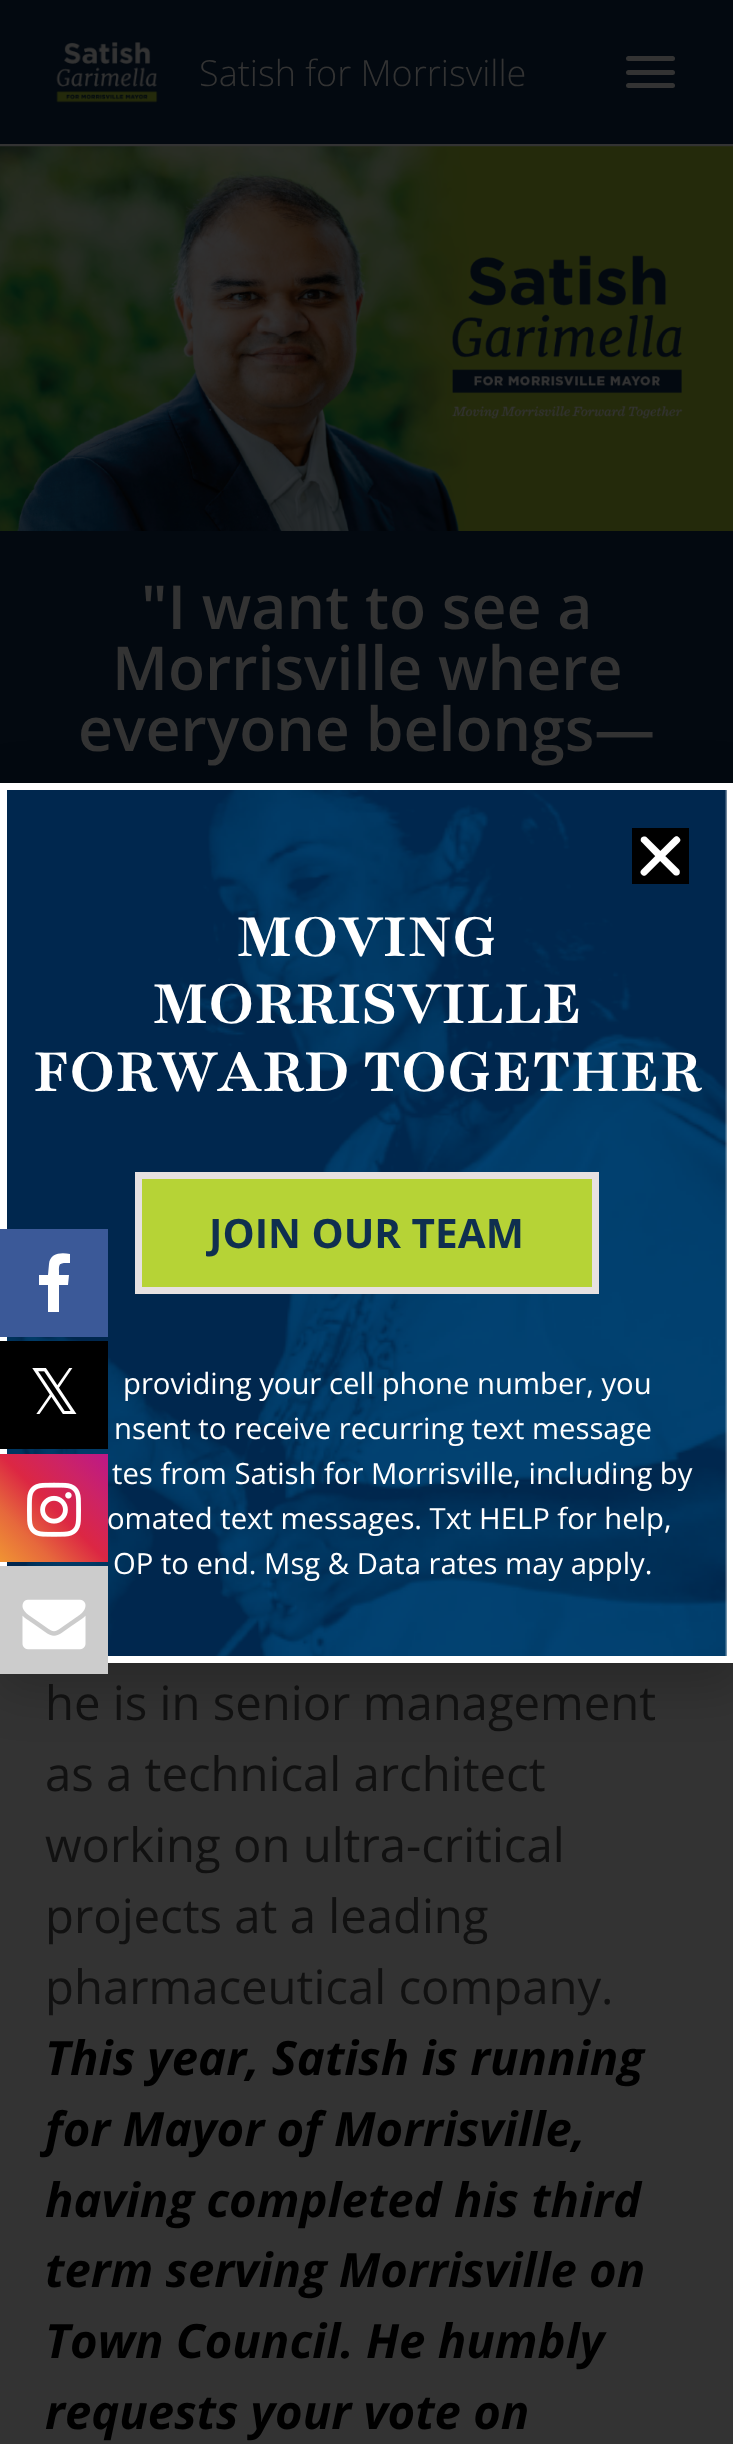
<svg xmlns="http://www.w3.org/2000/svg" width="733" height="2444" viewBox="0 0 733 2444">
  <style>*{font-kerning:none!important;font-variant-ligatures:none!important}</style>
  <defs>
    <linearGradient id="g1" gradientUnits="userSpaceOnUse" x1="0" y1="1562" x2="108" y2="1454"><stop offset="0" stop-color="#f09433"/><stop offset="0.25" stop-color="#e6683c"/><stop offset="0.5" stop-color="#dc2743"/><stop offset="0.75" stop-color="#cc2366"/><stop offset="1" stop-color="#bc1888"/></linearGradient>
  </defs>
  <rect width="100%" height="100%" fill="#333"/>
  <path d="M0 0h733v144H0z" fill="#030910"/>
  <image x="56" y="42" width="102" height="61" href="img/1.png"/>
  <rect x="626" y="56" width="49" height="5" rx="2.5" fill="#333"/>
  <rect x="626" y="70" width="49" height="5" rx="2.5" fill="#333"/>
  <rect x="626" y="83" width="49" height="5" rx="2.5" fill="#333"/>
  <image x="0" y="146" width="733" height="385" href="img/2.png"/>
  <path d="M0 531h733v252H0z" fill="#030910"/>
  <path d="M-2 794h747v894H-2z" fill="#00000033" filter="blur(26px)"/>
  <path d="M725 790h2v866H725z" fill="#fff"/>
  <image x="7" y="790" width="720" height="866" href="img/4.png"/>
  <path d="M3.5 786.5h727v873H3.5z" fill="none" stroke="#fff" stroke-width="7"/>
  <path d="M632 828h57v56H632z" fill="#000"/>
  <image x="640" y="836" width="41" height="40" href="img/3.png"/>
  <path d="M138.5 1175.5h457v115H138.5z" fill="#b6d336" stroke="#e6e1e1" stroke-width="7"/>
  <path d="M0 1229h108v108H0z" fill="#3b5998"/>
  <path d="M70 1254V1263C58 1263 59 1263 59 1275H69L68 1285H59V1312H48V1285H39V1275H48L49 1264C50 1253 61 1252 70 1254Z" fill="#fff"/>
  <path d="M0 1341h108v108H0z" fill="#000"/>
  <path d="M0 1454h108v108H0z" fill="url(#g1)"/>
  <image x="27" y="1482" width="54" height="55" href="img/5.png"/>
  <path d="M0 1566h108v108H0z" fill="#ccc"/>
  <image x="22" y="1599" width="64" height="51" href="img/6.png"/>
  <text x="199" y="86" font-family="Open Sans" font-size="36" font-weight="300" fill="#333">Satish for Morrisville</text>
  <g font-family="Open Sans" font-size="60.75" font-weight="600" fill="#333">
    <text x="141" y="629">"I want to see a</text>
    <text x="112" y="690">Morrisville where</text>
    <text x="78" y="751">everyone belongs—</text>
  </g>
  <g font-family="Open Sans" font-size="47.25" fill="#111">
    <text x="45" y="1720">he is in senior management</text>
    <text x="45" y="1791">as a technical architect</text>
    <text x="45" y="1862">working on ultra-critical</text>
    <text x="45" y="1933">projects at a leading</text>
    <text x="45" y="2004">pharmaceutical company.</text>
  </g>
  <g font-family="Open Sans" font-size="47.25" font-weight="bold" font-style="italic" fill="#000">
    <text x="45" y="2075">This year, Satish is running</text>
    <text x="45" y="2146">for Mayor of Morrisville,</text>
    <text x="45" y="2217">having completed his third</text>
    <text x="45" y="2287">term serving Morrisville on</text>
    <text x="45" y="2358">Town Council. He humbly</text>
    <text x="45" y="2429">requests your vote on</text>
  </g>
  <g font-family="'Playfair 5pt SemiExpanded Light'" font-size="67.5" font-weight="bold" fill="#fff">
    <text x="236" y="956">MOVING</text>
    <text x="152" y="1023">MORRISVILLE</text>
    <text x="33" y="1091">FORWARD TOGETHER</text>
  </g>
  <text x="209" y="1248" font-family="Open Sans" font-size="40.5" font-weight="bold" fill="#0f2f4f">JOIN OUR TEAM</text>
  <g font-family="Open Sans" font-size="29.25" fill="#fff">
    <text x="123" y="1394">providing your cell phone number, you</text>
    <text x="114" y="1439">nsent to receive recurring text message</text>
    <text x="112" y="1484">tes from Satish for Morrisville, including by</text>
    <text x="107" y="1529">omated text messages. Txt HELP for help,</text>
    <text x="113" y="1574">OP to end. Msg &amp; Data rates may apply.</text>
  </g>
  <text x="29" y="1414" font-family="DejaVu Sans" font-size="63" fill="#fff">𝕏</text>
</svg>
